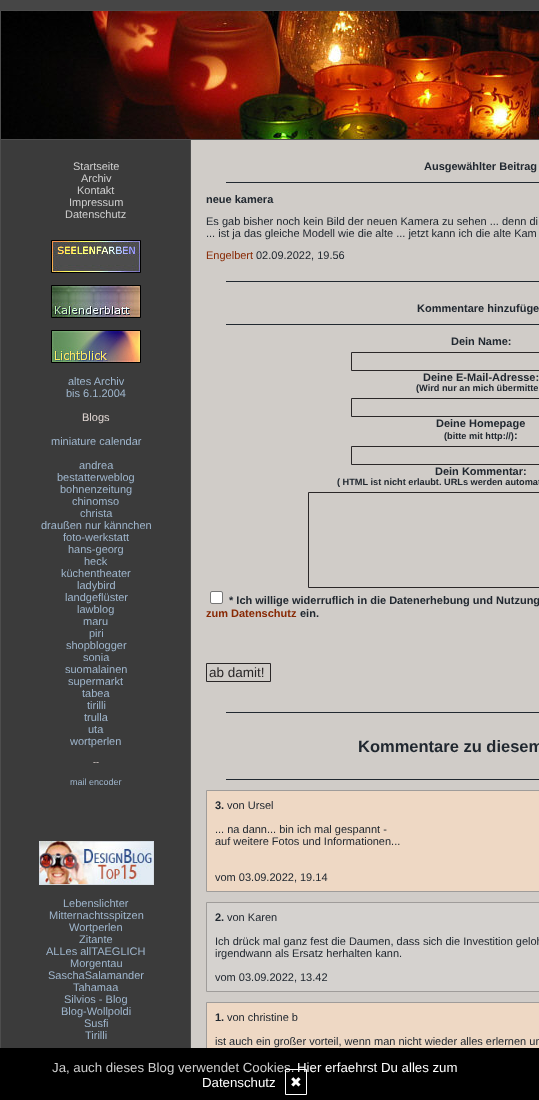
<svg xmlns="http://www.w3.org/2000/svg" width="539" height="1100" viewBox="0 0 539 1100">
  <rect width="100%" height="100%" fill="#464646"/>
  <path d="M0.5 10.5h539v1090H0.5z" fill="none" stroke="#4d4d4d"/>
  <path d="M1 139h538v1H1z" fill="#4d4d4d"/>
  <image x="1" y="11" width="538" height="128" href="img/1.png"/>
  <path d="M1 140h189v908H1z" fill="#3b3b3b"/>
  <path d="M190 140h1v908H190z" fill="#4d4d4d"/>
  <path d="M51.5 240.5h89v32H51.5z" fill="none" stroke="#000"/>
  <image x="52" y="241" width="88" height="31" href="img/2.png"/>
  <path d="M51.5 285.5h89v32H51.5z" fill="none" stroke="#000"/>
  <image x="52" y="286" width="88" height="31" href="img/3.png"/>
  <path d="M51.5 330.5h89v32H51.5z" fill="none" stroke="#000"/>
  <image x="52" y="331" width="88" height="31" href="img/4.png"/>
  <image x="39" y="841" width="115" height="44" href="img/5.png"/>
  <path d="M191 140h348v908H191z" fill="#d0ccc8"/>
  <path d="M226 182h313v1H226z" fill="#212830"/>
  <path d="M226 281h313v1H226z" fill="#212830"/>
  <path d="M226 324h313v1H226z" fill="#212830"/>
  <path d="M351.5 352.5h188v18H351.5z" fill="none" stroke="#2a2728"/>
  <path d="M351.5 398.5h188v18H351.5z" fill="none" stroke="#2a2728"/>
  <path d="M351.5 446.5h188v18H351.5z" fill="none" stroke="#2a2728"/>
  <path d="M308.5 492.5h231v95H308.5z" fill="none" stroke="#2a2728"/>
  <rect x="210.5" y="591.5" width="12" height="12" rx="1.5" fill="#fff" stroke="#767676"/>
  <path d="M206.5 663.5h64v18H206.5z" fill="none" stroke="#2a2728"/>
  <path d="M226 712h313v1H226z" fill="#212830"/>
  <path d="M226 779h313v1H226z" fill="#212830"/>
  <path d="M206.5 790.5h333v101H206.5z" fill="#eed8c4" stroke="#9f9c9a"/>
  <path d="M206.5 902.5h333v89H206.5z" fill="#d5d2cf" stroke="#9f9c9a"/>
  <path d="M207 1003h332v45H207z" fill="#eed8c4"/>
  <path d="M206.5 1002.5h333v89H206.5z" fill="none" stroke="#9f9c9a"/>
  <path d="M0 1049h539v51H0z" fill="#000"/>
  <path d="M-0.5 1048.5h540v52H-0.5z" fill="none" stroke="#000"/>
  <g font-family="Liberation Sans" font-size="11" fill="#cecece">
    <text x="73" y="170">Startseite</text>
    <text x="81" y="182">Archiv</text>
    <text x="77" y="194">Kontakt</text>
    <text x="69" y="206">Impressum</text>
    <text x="65" y="218">Datenschutz</text>
  </g>
  <g font-family="Liberation Sans" font-size="11" fill="#9fb6cd">
    <text x="68" y="385">altes Archiv</text>
    <text x="66" y="397">bis 6.1.2004</text>
  </g>
  <text x="82" y="421" font-family="Liberation Sans" font-size="11" fill="#e0d6d2">Blogs</text>
  <g font-family="Liberation Sans" font-size="11" fill="#9fb6cd">
    <text x="51" y="445">miniature calendar</text>
    <text x="79" y="469">andrea</text>
    <text x="57" y="481">bestatterweblog</text>
    <text x="60" y="493">bohnenzeitung</text>
    <text x="72" y="505">chinomso</text>
    <text x="80" y="517">christa</text>
    <text x="41" y="529">draußen nur kännchen</text>
    <text x="63" y="541">foto-werkstatt</text>
    <text x="68" y="553">hans-georg</text>
    <text x="84" y="565">heck</text>
    <text x="61" y="577">küchentheater</text>
    <text x="77" y="589">ladybird</text>
    <text x="65" y="601">landgeflüster</text>
    <text x="77" y="613">lawblog</text>
    <text x="83" y="625">maru</text>
    <text x="89" y="637">piri</text>
    <text x="66" y="649">shopblogger</text>
    <text x="83" y="661">sonia</text>
    <text x="65" y="673">suomalainen</text>
    <text x="68" y="685">supermarkt</text>
    <text x="82" y="697">tabea</text>
    <text x="87" y="709">tirilli</text>
    <text x="84" y="721">trulla</text>
    <text x="88" y="733">uta</text>
    <text x="70" y="745">wortperlen</text>
  </g>
  <text x="93" y="765" font-family="Liberation Sans" font-size="9" fill="#e0d6d2">--</text>
  <text x="70" y="785" font-family="Liberation Sans" font-size="9" fill="#9fb6cd">mail encoder</text>
  <g font-family="Liberation Sans" font-size="11" fill="#9fb6cd">
    <text x="63" y="907">Lebenslichter</text>
    <text x="49" y="919">Mitternachtsspitzen</text>
    <text x="69" y="931">Wortperlen</text>
    <text x="79" y="943">Zitante</text>
    <text x="46" y="955">ALLes allTAEGLICH</text>
    <text x="70" y="967">Morgentau</text>
    <text x="48" y="979">SaschaSalamander</text>
    <text x="73" y="991">Tahamaa</text>
    <text x="64" y="1003">Silvios - Blog</text>
    <text x="61" y="1015">Blog-Wollpoldi</text>
    <text x="84" y="1027">Susfi</text>
    <text x="85" y="1039">Tirilli</text>
  </g>
  <g font-family="Liberation Sans" font-size="11" font-weight="bold" fill="#212830">
    <text x="424" y="170">Ausgewählter Beitrag</text>
    <text x="206" y="203">neue kamera</text>
  </g>
  <g font-family="Liberation Sans" font-size="11" fill="#212830">
    <text x="206" y="225">Es gab bisher noch kein Bild der neuen Kamera zu sehen ... denn di</text>
    <text x="206" y="237">... ist ja das gleiche Modell wie die alte ... jetzt kann ich die alte Kam</text>
  </g>
  <text x="206" y="259" font-family="Liberation Sans" font-size="11" fill="#882904">Engelbert</text>
  <text x="256" y="259" font-family="Liberation Sans" font-size="11" fill="#212830">02.09.2022, 19.56</text>
  <g font-family="Liberation Sans" font-size="11" font-weight="bold" fill="#212830">
    <text x="417" y="312">Kommentare hinzufüge</text>
    <text x="451" y="345">Dein Name:</text>
    <text x="423" y="381">Deine E-Mail-Adresse:</text>
  </g>
  <text x="416" y="391" font-family="Liberation Sans" font-size="9.2" font-weight="bold" fill="#212830">(Wird nur an mich übermitte</text>
  <text x="436" y="427" font-family="Liberation Sans" font-size="11" font-weight="bold" fill="#212830">Deine Homepage</text>
  <text x="444" y="439" font-family="Liberation Sans" font-size="9.2" font-weight="bold" fill="#212830">(bitte mit http://)</text>
  <g font-family="Liberation Sans" font-size="11" font-weight="bold" fill="#212830">
    <text x="514" y="439">:</text>
    <text x="435" y="475">Dein Kommentar:</text>
  </g>
  <text x="337" y="485" font-family="Liberation Sans" font-size="9.2" font-weight="bold" fill="#212830">( HTML ist nicht erlaubt. URLs werden automat</text>
  <text x="229" y="604" font-family="Liberation Sans" font-size="11" font-weight="bold" fill="#212830">* Ich willige widerruflich in die Datenerhebung und Nutzung</text>
  <text x="206" y="617" font-family="Liberation Sans" font-size="11" font-weight="bold" fill="#882904">zum Datenschutz</text>
  <text x="300" y="617" font-family="Liberation Sans" font-size="11" font-weight="bold" fill="#212830">ein.</text>
  <text x="209" y="677" font-family="Liberation Sans" font-size="13.5" fill="#2a2728">ab damit!</text>
  <text x="358" y="752" font-family="Liberation Sans" font-size="16.5" font-weight="bold" fill="#212830">Kommentare zu diesem</text>
  <text x="215" y="809" font-family="Liberation Sans" font-size="11" font-weight="bold" fill="#212830">3.</text>
  <g font-family="Liberation Sans" font-size="11" fill="#212830">
    <text x="227" y="809">von Ursel</text>
    <text x="215" y="833">... na dann... bin ich mal gespannt -</text>
    <text x="215" y="845">auf weitere Fotos und Informationen...</text>
    <text x="215" y="881">vom 03.09.2022, 19.14</text>
  </g>
  <text x="215" y="921" font-family="Liberation Sans" font-size="11" font-weight="bold" fill="#212830">2.</text>
  <g font-family="Liberation Sans" font-size="11" fill="#212830">
    <text x="227" y="921">von Karen</text>
    <text x="215" y="945">Ich drück mal ganz fest die Daumen, dass sich die Investition geloh</text>
    <text x="215" y="957">irgendwann als Ersatz herhalten kann.</text>
    <text x="215" y="981">vom 03.09.2022, 13.42</text>
  </g>
  <text x="215" y="1021" font-family="Liberation Sans" font-size="11" font-weight="bold" fill="#212830">1.</text>
  <g font-family="Liberation Sans" font-size="11" fill="#212830">
    <text x="227" y="1021">von christine b</text>
    <text x="215" y="1045">ist auch ein großer vorteil, wenn man nicht wieder alles erlernen un</text>
  </g>
  <text x="52" y="1072" font-family="Liberation Sans" font-size="13.25" fill="#cecece">Ja, auch dieses Blog verwendet Cookies.</text>
  <g font-family="Liberation Sans" font-size="13.25" fill="#fff">
    <text x="297" y="1072">Hier erfaehrst Du alles zum</text>
    <text x="202" y="1087">Datenschutz</text>
  </g>
  <path d="M285.5 1069.5h21v25H285.5z" fill="none" stroke="#fff"/>
  <text x="290" y="1087" font-family="DejaVu Sans" font-size="14" fill="#fff">✖</text>
</svg>
